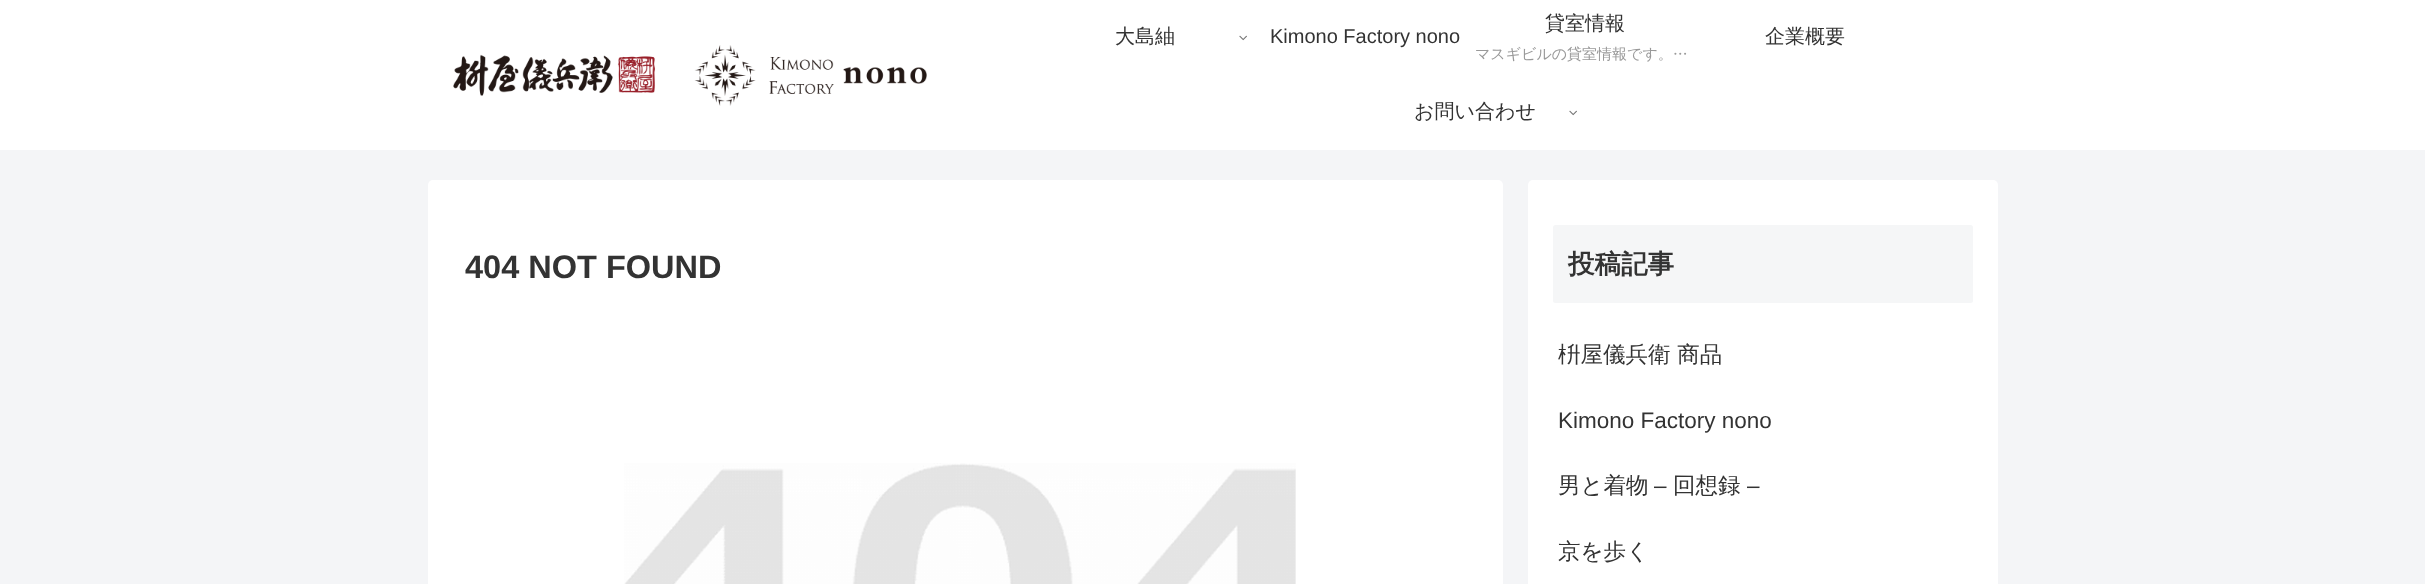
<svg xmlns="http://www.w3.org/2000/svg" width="2425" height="584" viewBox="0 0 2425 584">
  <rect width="100%" height="100%" fill="#f4f5f7"/>
  <path d="M0 0h2425v150H0z" fill="#fff"/>
  <image x="453" y="45" width="474" height="61" href="img/1.png"/>
  <image x="1239" y="35" width="8" height="6" href="img/2.png"/>
  <image x="1569" y="110" width="8" height="6" href="img/2.png"/>
  <rect x="428" y="180" width="1075" height="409" rx="5" fill="#fff"/>
  <image x="624" y="463" width="672" height="121" href="img/3.png"/>
  <rect x="1528" y="180" width="470" height="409" rx="5" fill="#fff"/>
  <rect x="1553" y="225" width="420" height="78" rx="2.5" fill="#f5f6f7"/>
  <text x="1115" y="43" font-family="WenQuanYi Zen Hei" font-size="20" font-weight="500" fill="#333">大島紬</text>
  <text x="1270" y="43" font-family="Liberation Sans" font-size="20" fill="#333">Kimono Factory nono</text>
  <text x="1545" y="30" font-family="WenQuanYi Zen Hei" font-size="20" font-weight="500" fill="#333">貸室情報</text>
  <text x="1475" y="59" font-family="WenQuanYi Zen Hei" font-size="15" font-weight="500" fill="#999">マスギビルの貸室情報です。…</text>
  <g font-family="WenQuanYi Zen Hei" font-size="20" font-weight="500" fill="#333">
    <text x="1765" y="43">企業概要</text>
    <text x="1414" y="118">お問い合わせ</text>
  </g>
  <text x="465" y="278" font-family="Liberation Sans" font-size="32.5" font-weight="bold" fill="#333">404 NOT FOUND</text>
  <text x="1568" y="273" font-family="WenQuanYi Zen Hei" font-size="26.5" font-weight="bold" fill="#333">投稿記事</text>
  <text x="1558" y="362" font-family="WenQuanYi Zen Hei" font-size="22.5" font-weight="500" fill="#333">枡屋儀兵衛 商品</text>
  <text x="1558" y="428" font-family="Liberation Sans" font-size="22.5" fill="#333">Kimono Factory nono</text>
  <text x="1558" y="493" font-family="WenQuanYi Zen Hei" font-size="22.5" font-weight="500" fill="#333">男と着物</text>
  <text x="1654" y="493" font-family="Liberation Sans" font-size="22.5" fill="#333">–</text>
  <text x="1673" y="493" font-family="WenQuanYi Zen Hei" font-size="22.5" font-weight="500" fill="#333">回想録</text>
  <text x="1747" y="493" font-family="Liberation Sans" font-size="22.5" fill="#333">–</text>
  <text x="1558" y="559" font-family="WenQuanYi Zen Hei" font-size="22.5" font-weight="500" fill="#333">京を歩く</text>
</svg>
